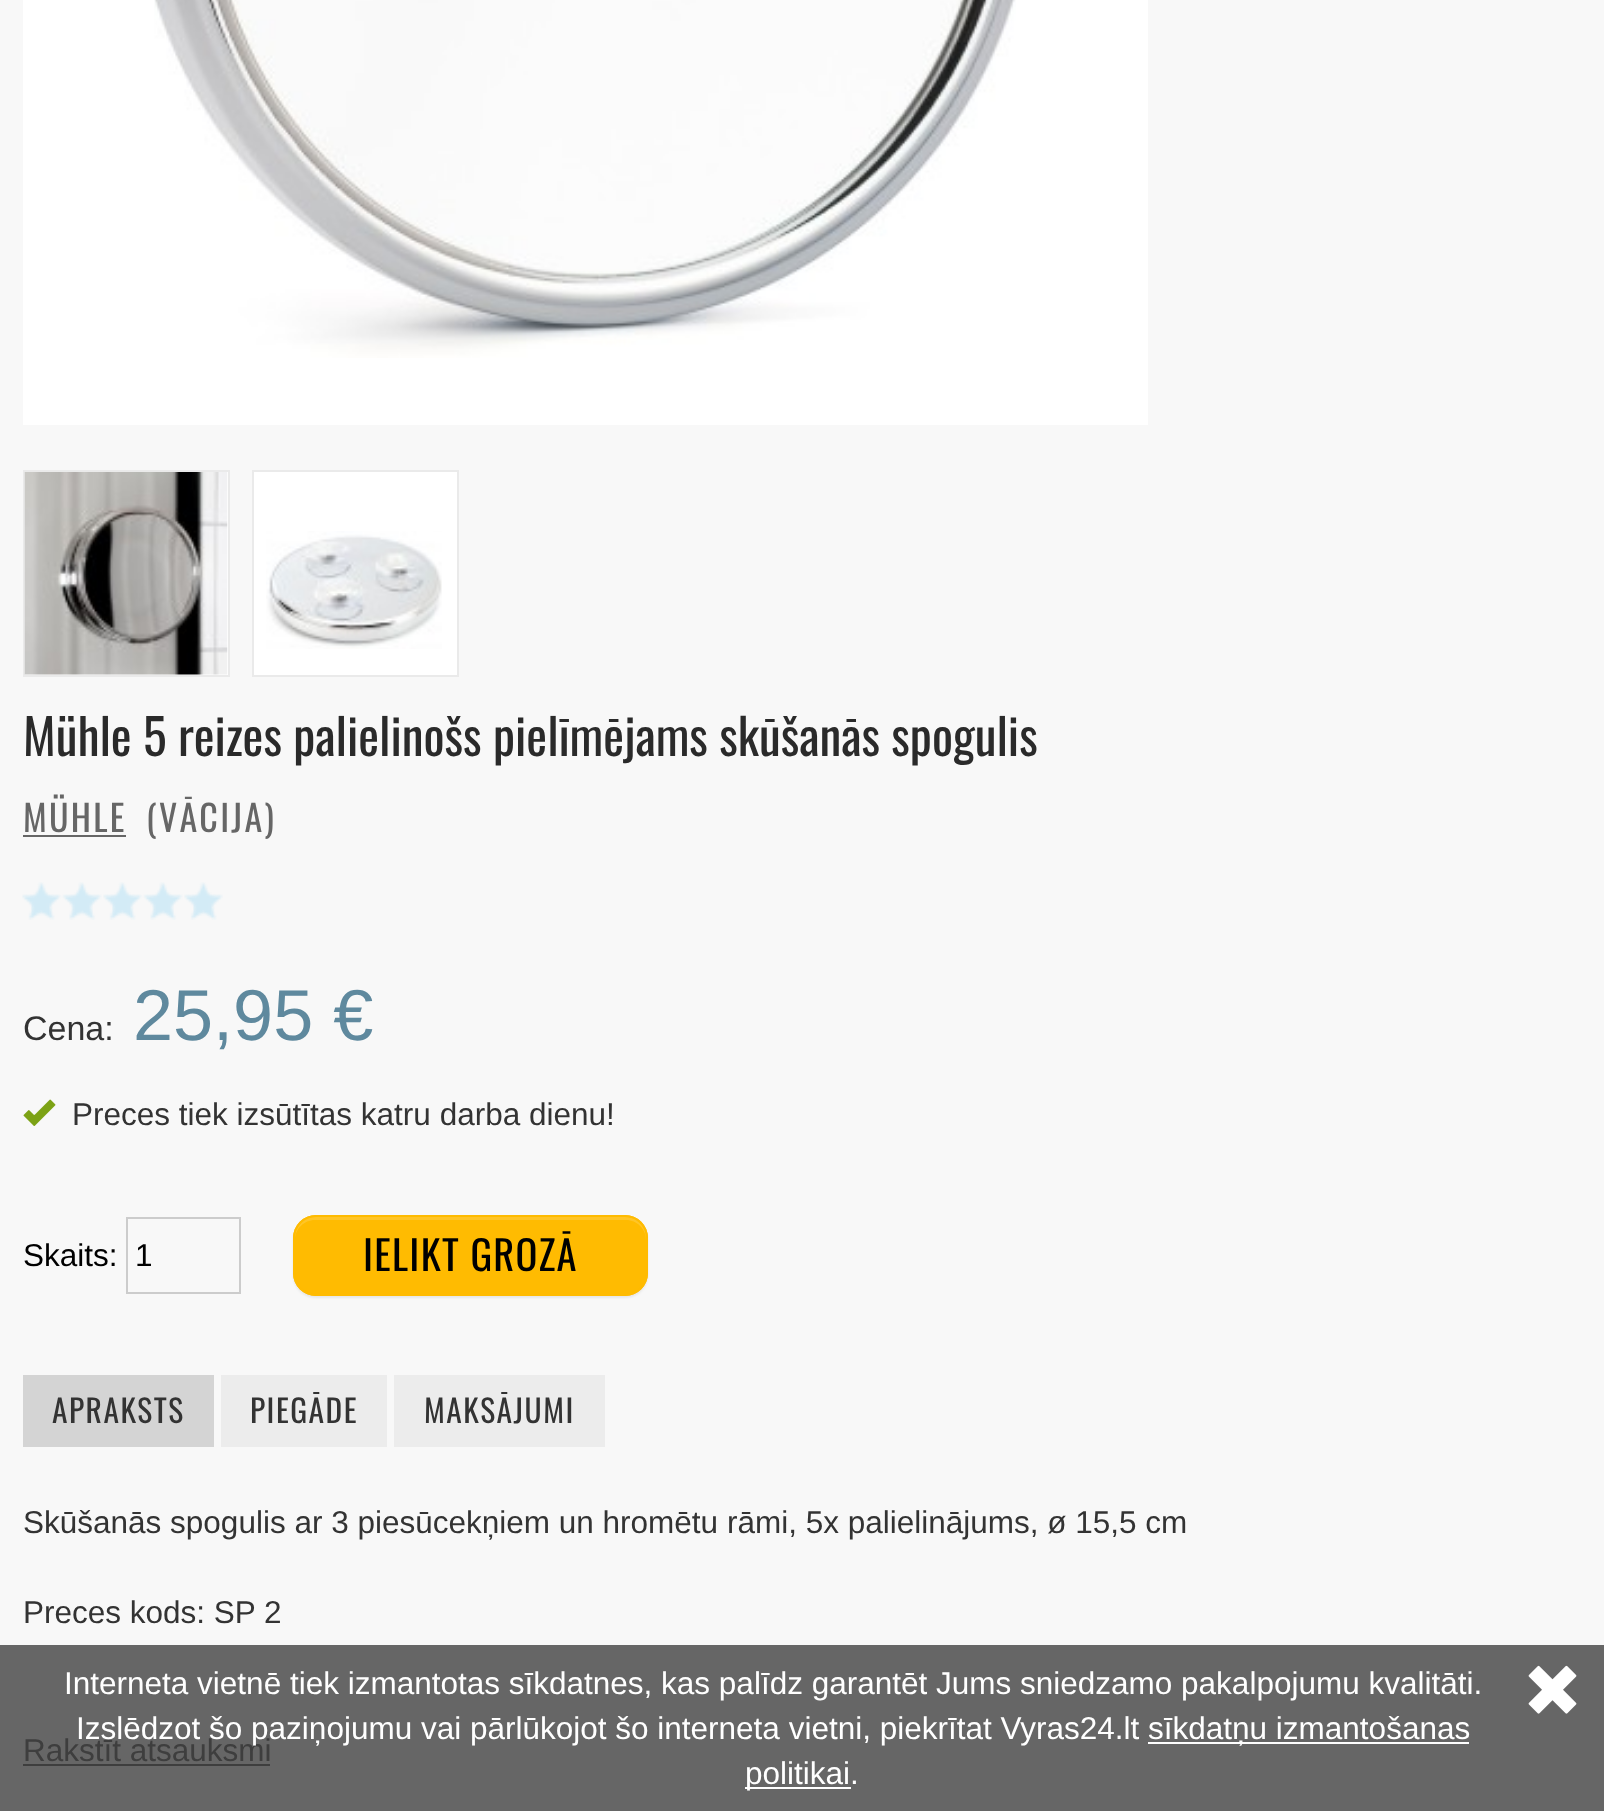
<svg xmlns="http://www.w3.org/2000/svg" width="1604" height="1811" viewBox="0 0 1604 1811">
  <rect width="100%" height="100%" fill="#f8f8f8"/>
  <path d="M0 1645h1604v166H0z" fill="#666"/>
  <path d="M23 0h1125v425H23z" fill="#fff"/>
  <image x="154" y="0" width="862" height="358" href="img/1.png"/>
  <path d="M24 471h205v205H24z" fill="#fff" stroke="#eaeaea" stroke-width="2"/>
  <image x="24" y="472" width="204" height="203" href="img/2.png"/>
  <path d="M253 471h205v205H253z" fill="#fff" stroke="#eaeaea" stroke-width="2"/>
  <image x="266" y="531" width="176" height="118" href="img/3.png"/>
  <path d="M23 835h103v2H23z" fill="#666"/>
  <image x="22" y="882" width="201" height="38" href="img/4.png"/>
  <image x="23" y="1099" width="33" height="27" href="img/5.png"/>
  <path d="M127 1218h113v75H127z" fill="none" stroke="#ccc" stroke-width="2"/>
  <rect x="293" y="1217" width="355" height="81" rx="23" fill="#00000012" filter="blur(1px)"/>
  <rect x="293" y="1215" width="355" height="81" rx="23" fill="#ffbb01"/>
  <path d="M315 1220H626C637 1220 646 1229 646 1240V1237C646 1226 637 1217 626 1217H315C304 1217 295 1226 295 1237V1240C295 1229 304 1220 315 1220Z" fill="#ffc527"/>
  <rect x="294" y="1216" width="353" height="79" rx="22" fill="none" stroke="#ffbb01" stroke-width="2"/>
  <path d="M23 1375h191v72H23z" fill="#d4d4d4"/>
  <path d="M221 1375h166v72H221z" fill="#ececec"/>
  <path d="M394 1375h211v72H394z" fill="#ececec"/>
  <path d="M23 1764h247v2H23z" fill="#3e3e3e"/>
  <image x="1528" y="1665" width="49" height="49" href="img/6.png"/>
  <path d="M1148 1742h321v2H1148z" fill="#fff"/>
  <path d="M745 1787h106v2H745z" fill="#fff"/>
  <text x="23" y="756" font-family="Oswald" font-size="49.5" fill="#2a2a2a">Mühle 5 reizes palielinošs pielīmējams skūšanās spogulis</text>
  <g font-family="Oswald" font-size="36" letter-spacing="2.25" fill="#666">
    <text x="23" y="832">MÜHLE</text>
    <text x="146" y="832">(VĀCIJA)</text>
  </g>
  <text x="23" y="1040" font-family="Liberation Sans" font-size="34" fill="#333">Cena:</text>
  <text x="133" y="1040" font-family="Liberation Sans" font-size="72" fill="#5f899e">25,95 €</text>
  <text x="72" y="1125" font-family="Liberation Sans" font-size="31.5" fill="#333">Preces tiek izsūtītas katru darba dienu!</text>
  <g font-family="Liberation Sans" font-size="31.5" fill="#000">
    <text x="23" y="1266">Skaits:</text>
    <text x="135" y="1266">1</text>
  </g>
  <text x="363" y="1271" font-family="Oswald" font-size="40.5" letter-spacing="1.25" fill="#000">IELIKT GROZĀ</text>
  <g font-family="Oswald" font-size="31.5" letter-spacing="1.5" fill="#333">
    <text x="52" y="1423">APRAKSTS</text>
    <text x="250" y="1423">PIEGĀDE</text>
    <text x="424" y="1423">MAKSĀJUMI</text>
  </g>
  <g font-family="Liberation Sans" font-size="31.5" fill="#333">
    <text x="23" y="1533">Skūšanās spogulis ar 3 piesūcekņiem un hromētu rāmi, 5x palielinājums, ø 15,5 cm</text>
    <text x="23" y="1623">Preces kods: SP 2</text>
  </g>
  <text x="23" y="1761" font-family="Liberation Sans" font-size="31.5" fill="#3e3e3e">Rakstīt atsauksmi</text>
  <g font-family="Liberation Sans" font-size="31.5" fill="#fff">
    <text x="64" y="1694">Interneta vietnē tiek izmantotas sīkdatnes, kas palīdz garantēt Jums sniedzamo pakalpojumu kvalitāti.</text>
    <text x="76" y="1739">Izslēdzot šo paziņojumu vai pārlūkojot šo interneta vietni, piekrītat Vyras24.lt</text>
    <text x="1148" y="1739">sīkdatņu izmantošanas</text>
    <text x="745" y="1784">politikai.</text>
  </g>
</svg>
